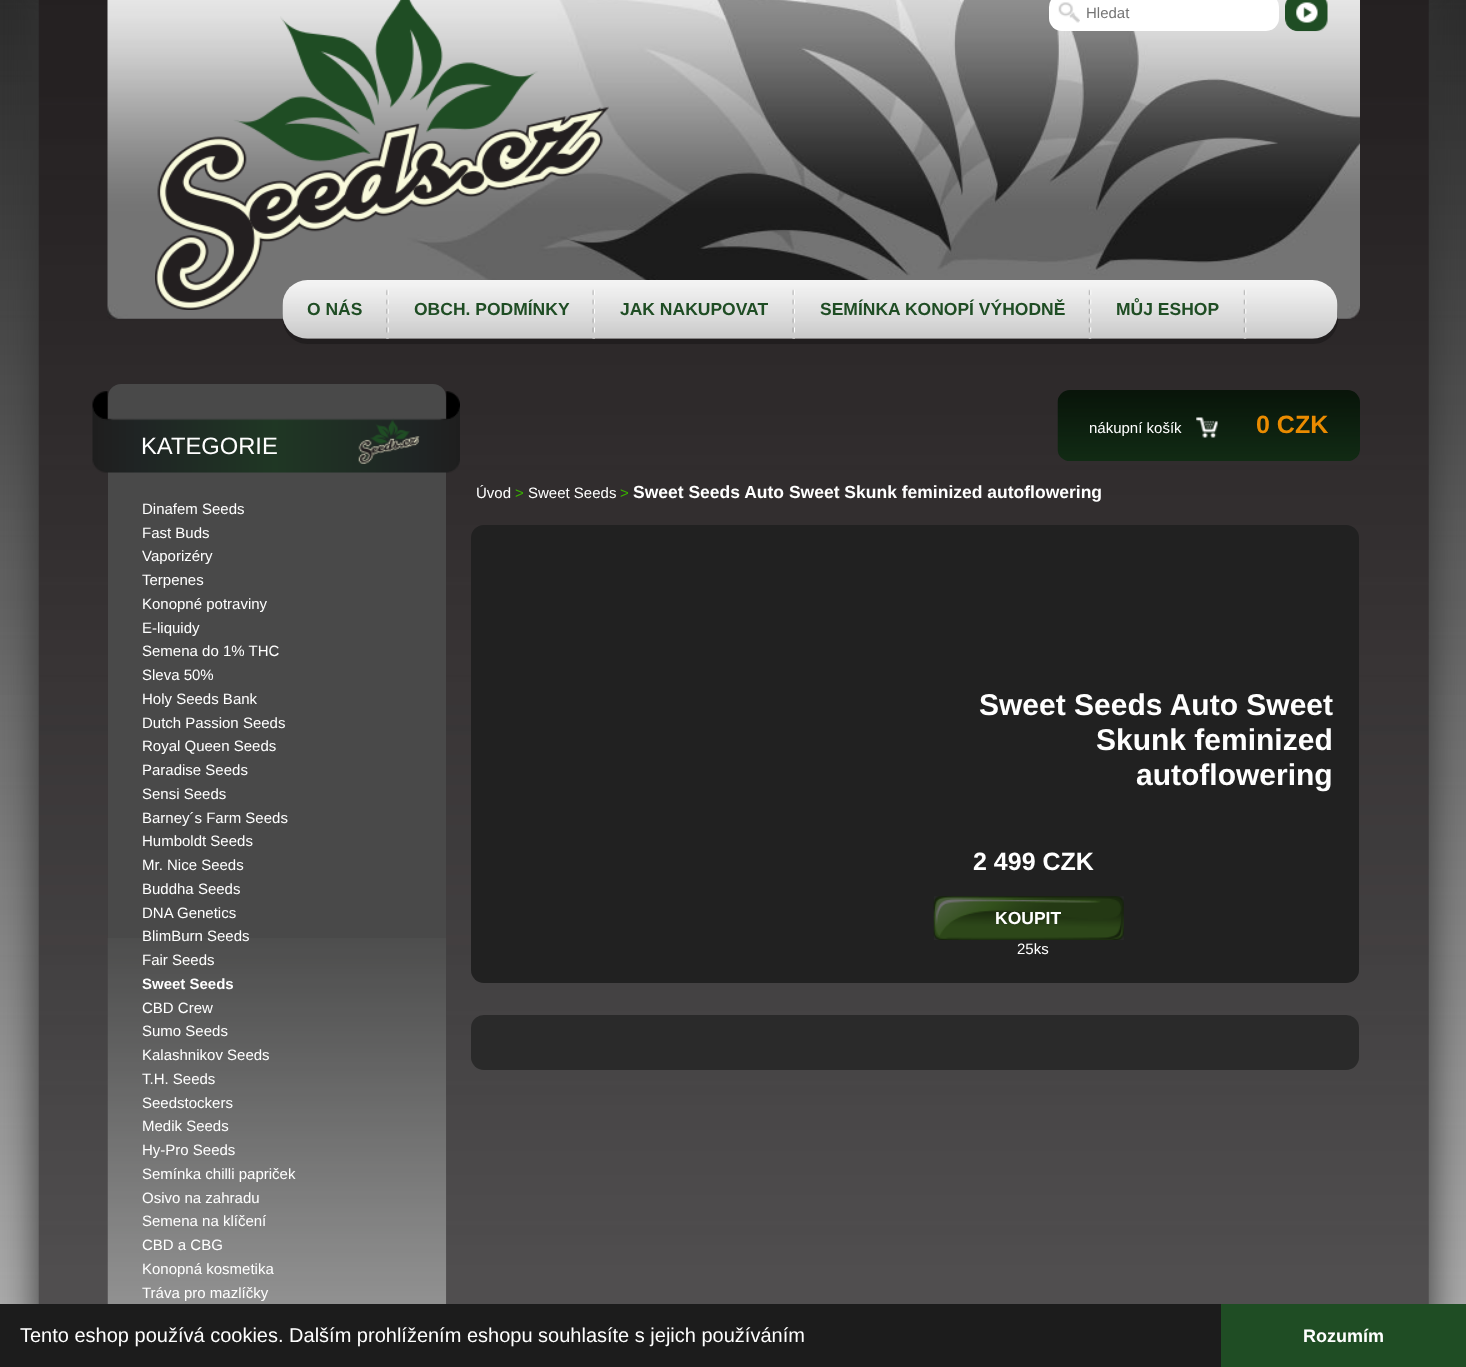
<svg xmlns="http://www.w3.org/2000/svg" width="1466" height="1367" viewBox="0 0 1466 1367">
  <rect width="100%" height="100%" fill="#fff"/>
  <image x="0" y="0" width="1466" height="1304" href="img/1.png"/>
  <path d="M39 -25h1390v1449H39z" fill="#333" filter="blur(19px)"/>
  <image x="38" y="0" width="1391" height="1304" href="img/2.png"/>
  <image x="107" y="0" width="1253" height="319" href="img/3.png"/>
  <image x="155" y="0" width="454" height="310" href="img/4.png"/>
  <rect x="1049" y="-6" width="230" height="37" rx="13" fill="#fff"/>
  <image x="1058" y="2" width="22" height="21" href="img/5.png"/>
  <image x="1285" y="0" width="43" height="32" href="img/6.png"/>
  <path d="M283 319C283 333 294 344 308 344H1313C1327 344 1338 333 1338 319L1337 305L1338 314C1338 328 1326 339 1312 339H308C295 339 285 330 283 319Z" fill="#211e1f"/>
  <image x="282" y="280" width="1056" height="59" href="img/7.png"/>
  <image x="386" y="289" width="3" height="50" href="img/8.png"/>
  <image x="592" y="289" width="3" height="50" href="img/9.png"/>
  <image x="792" y="289" width="3" height="50" href="img/9.png"/>
  <image x="1088" y="289" width="4" height="50" href="img/10.png"/>
  <image x="1243" y="289" width="4" height="50" href="img/10.png"/>
  <image x="1057" y="390" width="303" height="71" href="img/11.png"/>
  <image x="1196" y="417" width="22" height="21" href="img/12.png"/>
  <rect x="108" y="384" width="338" height="980" rx="13" fill="#494949"/>
  <image x="107" y="938" width="340" height="366" href="img/13.png"/>
  <image x="92" y="391" width="368" height="82" href="img/14.png"/>
  <rect x="471" y="525" width="888" height="458" rx="13" fill="#212121"/>
  <image x="933" y="896" width="191" height="44" href="img/15.png"/>
  <rect x="471" y="1015" width="888" height="55" rx="13" fill="#2a2a2a"/>
  <path d="M0 1304h1221v63H0z" fill="#1c1c1c"/>
  <path d="M1221 1304h245v63H1221z" fill="#1f4d24"/>
  <text x="1086" y="18" font-family="Liberation Sans" font-size="15" fill="#757575">Hledat</text>
  <g font-family="Liberation Sans" font-size="17.5" font-weight="bold" fill="#1f4d24">
    <text x="307" y="315">O NÁS</text>
    <text x="414" y="315">OBCH. PODMÍNKY</text>
    <text x="620" y="315">JAK NAKUPOVAT</text>
    <text x="820" y="315">SEMÍNKA KONOPÍ VÝHODNĚ</text>
    <text x="1116" y="315">MŮJ ESHOP</text>
  </g>
  <text x="1089" y="433" font-family="Liberation Sans" font-size="15" fill="#fff">nákupní košík</text>
  <text x="1256" y="433" font-family="Liberation Sans" font-size="25" font-weight="bold" fill="#ea8b00">0 CZK</text>
  <text x="141" y="454" font-family="Liberation Sans" font-size="23.75" fill="#fff">KATEGORIE</text>
  <g font-family="Liberation Sans" font-size="15" fill="#fff">
    <text x="142" y="514">Dinafem Seeds</text>
    <text x="142" y="538">Fast Buds</text>
    <text x="142" y="561">Vaporizéry</text>
    <text x="142" y="585">Terpenes</text>
    <text x="142" y="609">Konopné potraviny</text>
    <text x="142" y="633">E-liquidy</text>
    <text x="142" y="656">Semena do 1% THC</text>
    <text x="142" y="680">Sleva 50%</text>
    <text x="142" y="704">Holy Seeds Bank</text>
    <text x="142" y="728">Dutch Passion Seeds</text>
    <text x="142" y="751">Royal Queen Seeds</text>
    <text x="142" y="775">Paradise Seeds</text>
    <text x="142" y="799">Sensi Seeds</text>
    <text x="142" y="823">Barney´s Farm Seeds</text>
    <text x="142" y="846">Humboldt Seeds</text>
    <text x="142" y="870">Mr. Nice Seeds</text>
    <text x="142" y="894">Buddha Seeds</text>
    <text x="142" y="918">DNA Genetics</text>
    <text x="142" y="941">BlimBurn Seeds</text>
    <text x="142" y="965">Fair Seeds</text>
  </g>
  <text x="142" y="989" font-family="Liberation Sans" font-size="15" font-weight="bold" fill="#fff">Sweet Seeds</text>
  <g font-family="Liberation Sans" font-size="15" fill="#fff">
    <text x="142" y="1013">CBD Crew</text>
    <text x="142" y="1036">Sumo Seeds</text>
    <text x="142" y="1060">Kalashnikov Seeds</text>
    <text x="142" y="1084">T.H. Seeds</text>
    <text x="142" y="1108">Seedstockers</text>
    <text x="142" y="1131">Medik Seeds</text>
    <text x="142" y="1155">Hy-Pro Seeds</text>
    <text x="142" y="1179">Semínka chilli papriček</text>
    <text x="142" y="1203">Osivo na zahradu</text>
    <text x="142" y="1226">Semena na klíčení</text>
    <text x="142" y="1250">CBD a CBG</text>
    <text x="142" y="1274">Konopná kosmetika</text>
    <text x="142" y="1298">Tráva pro mazlíčky</text>
    <text x="476" y="498">Úvod</text>
  </g>
  <text x="515" y="498" font-family="Liberation Sans" font-size="15" fill="#39ae00">&gt;</text>
  <text x="528" y="498" font-family="Liberation Sans" font-size="15" fill="#fff">Sweet Seeds</text>
  <text x="620" y="498" font-family="Liberation Sans" font-size="15" fill="#39ae00">&gt;</text>
  <text x="633" y="498" font-family="Liberation Sans" font-size="17.5" font-weight="bold" fill="#fff">Sweet Seeds Auto Sweet Skunk feminized autoflowering</text>
  <g font-family="Liberation Sans" font-size="30" font-weight="bold" fill="#fff">
    <text x="979" y="715">Sweet Seeds Auto Sweet</text>
    <text x="1096" y="750">Skunk feminized</text>
    <text x="1136" y="785">autoflowering</text>
  </g>
  <text x="973" y="870" font-family="Liberation Sans" font-size="25" font-weight="bold" fill="#fff">2 499 CZK</text>
  <text x="995" y="924" font-family="Liberation Sans" font-size="17.5" font-weight="bold" fill="#fff">KOUPIT</text>
  <text x="1017" y="954" font-family="Liberation Sans" font-size="15" fill="#fff">25ks</text>
  <text x="20" y="1342" font-family="Liberation Sans" font-size="20" fill="#fff">Tento eshop používá cookies. Dalším prohlížením eshopu souhlasíte s jejich používáním</text>
  <text x="1303" y="1342" font-family="Liberation Sans" font-size="18" font-weight="bold" fill="#fff">Rozumím</text>
</svg>
